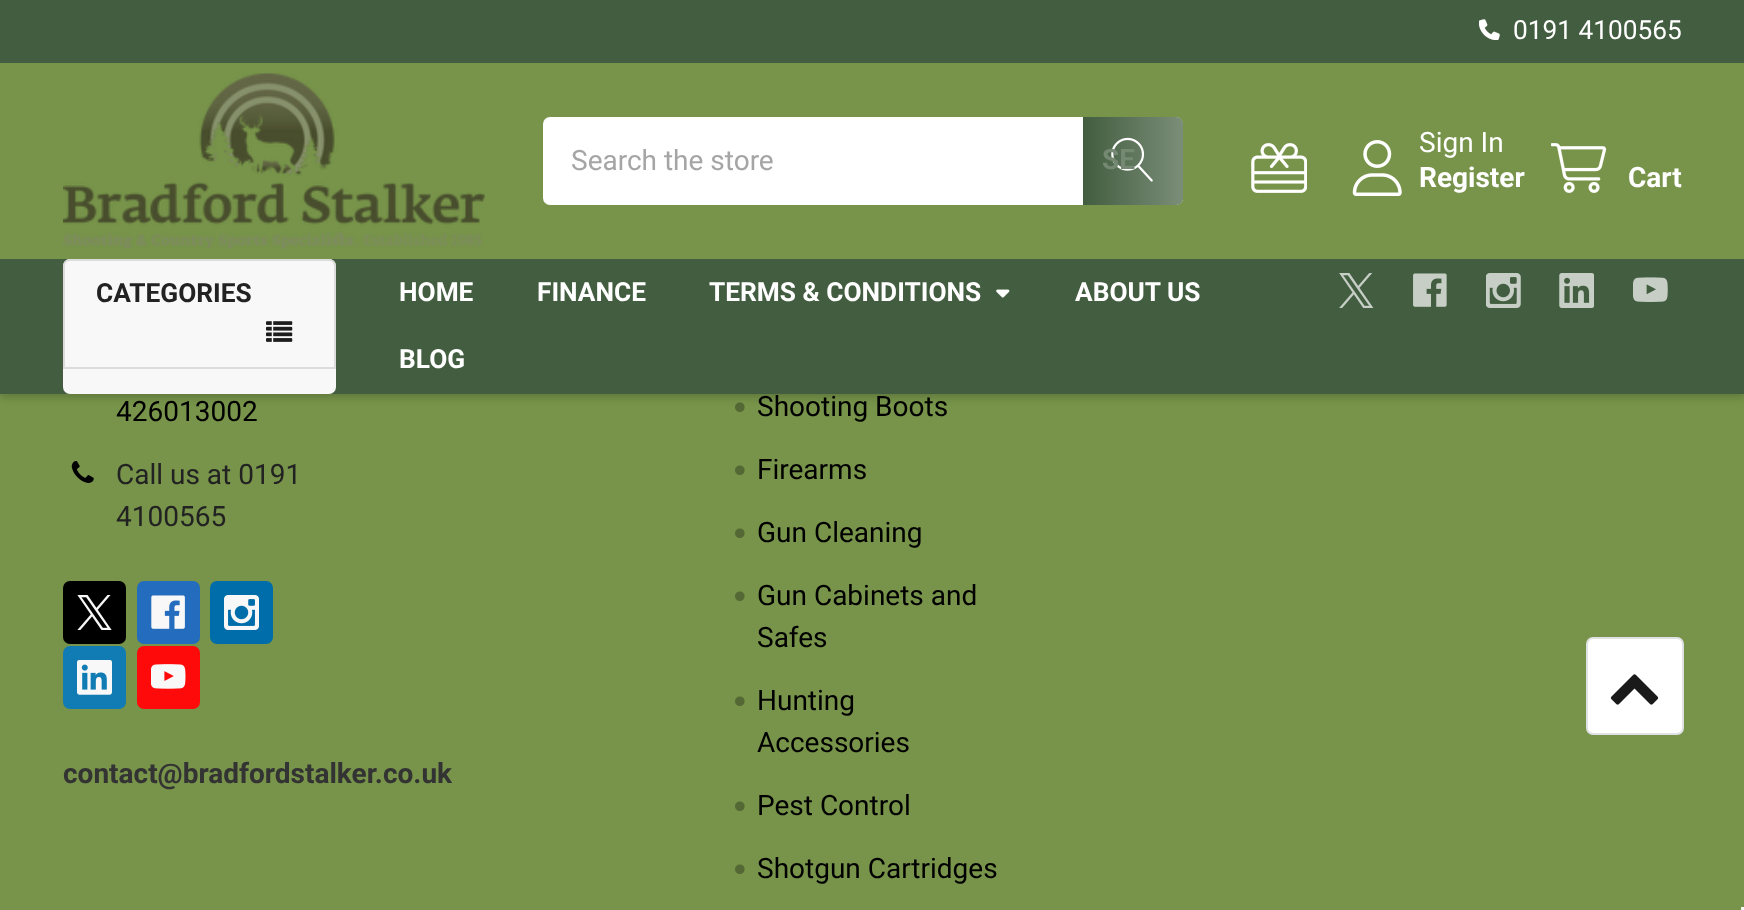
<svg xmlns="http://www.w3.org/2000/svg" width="1744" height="910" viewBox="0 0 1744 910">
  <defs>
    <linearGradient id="g1" gradientUnits="userSpaceOnUse" x1="1083" y1="161" x2="1183" y2="161"><stop offset="0" stop-color="#425d3f"/><stop offset="1" stop-color="#425d3f" stop-opacity="0.7"/></linearGradient>
  </defs>
  <rect width="100%" height="100%" fill="#77944a"/>
  <image x="735" y="402" width="10" height="10" href="img/20.png"/>
  <path d="M0 4h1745v393H0z" fill="#00000033" filter="blur(4.5px)"/>
  <path d="M0 63h1744v196H0z" fill="#77944a"/>
  <path d="M0 0h1744v63H0z" fill="#425d3f"/>
  <image x="1479" y="19" width="21" height="21" href="img/1.png"/>
  <image x="63" y="73" width="422" height="176" href="img/2.png"/>
  <rect x="543" y="117" width="640" height="88" rx="7" fill="#fff"/>
  <path d="M1083 117H1176C1180 117 1183 120 1183 124V198C1183 202 1180 205 1176 205H1083Z" fill="url(#g1)"/>
  <image x="1111" y="137" width="42" height="45" href="img/3.png"/>
  <image x="1251" y="143" width="56" height="50" href="img/4.png"/>
  <image x="1352" y="140" width="50" height="56" href="img/5.png"/>
  <image x="1551" y="143" width="56" height="50" href="img/6.png"/>
  <path d="M0 259h1744v135H0z" fill="#425d3f"/>
  <rect x="63" y="259" width="273" height="135" rx="7" fill="#f8f8f8"/>
  <path d="M70 260H329C332.5 260 335 262.5 335 266V368H64V266C64 262.5 66.5 260 70 260Z" fill="none" stroke="#dcdcdc" stroke-width="2"/>
  <image x="266" y="321" width="27" height="21" href="img/7.png"/>
  <image x="996" y="289" width="14" height="9" href="img/8.png"/>
  <image x="1339" y="273" width="35" height="35" href="img/9.png"/>
  <image x="1413" y="273" width="34" height="34" href="img/10.png"/>
  <image x="1486" y="273" width="35" height="35" href="img/11.png"/>
  <image x="1559" y="273" width="35" height="35" href="img/12.png"/>
  <image x="1633" y="277" width="35" height="25" href="img/13.png"/>
  <image x="71" y="461" width="23" height="22" href="img/14.png"/>
  <rect x="63" y="581" width="63" height="63" rx="7" fill="#000"/>
  <image x="77" y="595" width="35" height="35" href="img/15.png"/>
  <rect x="137" y="581" width="63" height="63" rx="7" fill="#236cbe"/>
  <image x="151" y="595" width="34" height="34" href="img/16.png"/>
  <rect x="210" y="581" width="63" height="63" rx="7" fill="#006dab"/>
  <image x="224" y="595" width="35" height="35" href="img/17.png"/>
  <rect x="63" y="646" width="63" height="63" rx="7" fill="#117cb3"/>
  <image x="77" y="660" width="35" height="35" href="img/18.png"/>
  <rect x="137" y="646" width="63" height="63" rx="7" fill="#ff0a0a"/>
  <image x="151" y="664" width="35" height="25" href="img/19.png"/>
  <image x="735" y="465" width="10" height="10" href="img/20.png"/>
  <image x="735" y="528" width="10" height="10" href="img/20.png"/>
  <image x="735" y="591" width="10" height="10" href="img/20.png"/>
  <image x="735" y="696" width="10" height="10" href="img/20.png"/>
  <image x="735" y="801" width="10" height="10" href="img/20.png"/>
  <image x="735" y="864" width="10" height="10" href="img/20.png"/>
  <rect x="1587" y="638" width="96" height="96" rx="6" fill="#fff" stroke="#e0e1e4" stroke-width="2"/>
  <image x="1610" y="674" width="49" height="31" href="img/21.png"/>
  <path d="M1741 907h3v3H1741z" fill="#f5f5f5"/>
  <text x="1513" y="39" font-family="Roboto" font-size="26.25" fill="#fff">0191 4100565</text>
  <text x="571" y="170" font-family="Roboto" font-size="28" fill="#a5a5a5">Search the store</text>
  <text x="1102" y="169" font-family="Roboto" font-size="28" font-weight="bold" fill="#748872">SE</text>
  <text x="1419" y="152" font-family="Roboto" font-size="28" fill="#fff">Sign In</text>
  <g font-family="Roboto" font-size="28" font-weight="bold" fill="#fff">
    <text x="1419" y="187">Register</text>
    <text x="1628" y="187">Cart</text>
  </g>
  <text x="96" y="302" font-family="Roboto" font-size="26.25" font-weight="bold" fill="#222">CATEGORIES</text>
  <g font-family="Roboto" font-size="26.25" font-weight="bold" fill="#fff">
    <text x="399" y="301">HOME</text>
    <text x="537" y="301">FINANCE</text>
    <text x="709" y="301">TERMS &amp; CONDITIONS</text>
    <text x="1075" y="301">ABOUT US</text>
    <text x="399" y="368">BLOG</text>
  </g>
  <text x="116" y="421" font-family="Roboto" font-size="28" fill="#000">426013002</text>
  <g font-family="Roboto" font-size="28" fill="#222">
    <text x="116" y="484">Call us at 0191</text>
    <text x="116" y="526">4100565</text>
  </g>
  <text x="63" y="783" font-family="Roboto" font-size="28" font-weight="bold" fill="#333">contact@bradfordstalker.co.uk</text>
  <g font-family="Roboto" font-size="28" fill="#000">
    <text x="757" y="416">Shooting Boots</text>
    <text x="757" y="479">Firearms</text>
    <text x="757" y="542">Gun Cleaning</text>
    <text x="757" y="605">Gun Cabinets and</text>
    <text x="757" y="647">Safes</text>
    <text x="757" y="710">Hunting</text>
    <text x="757" y="752">Accessories</text>
    <text x="757" y="815">Pest Control</text>
    <text x="757" y="878">Shotgun Cartridges</text>
  </g>
</svg>
